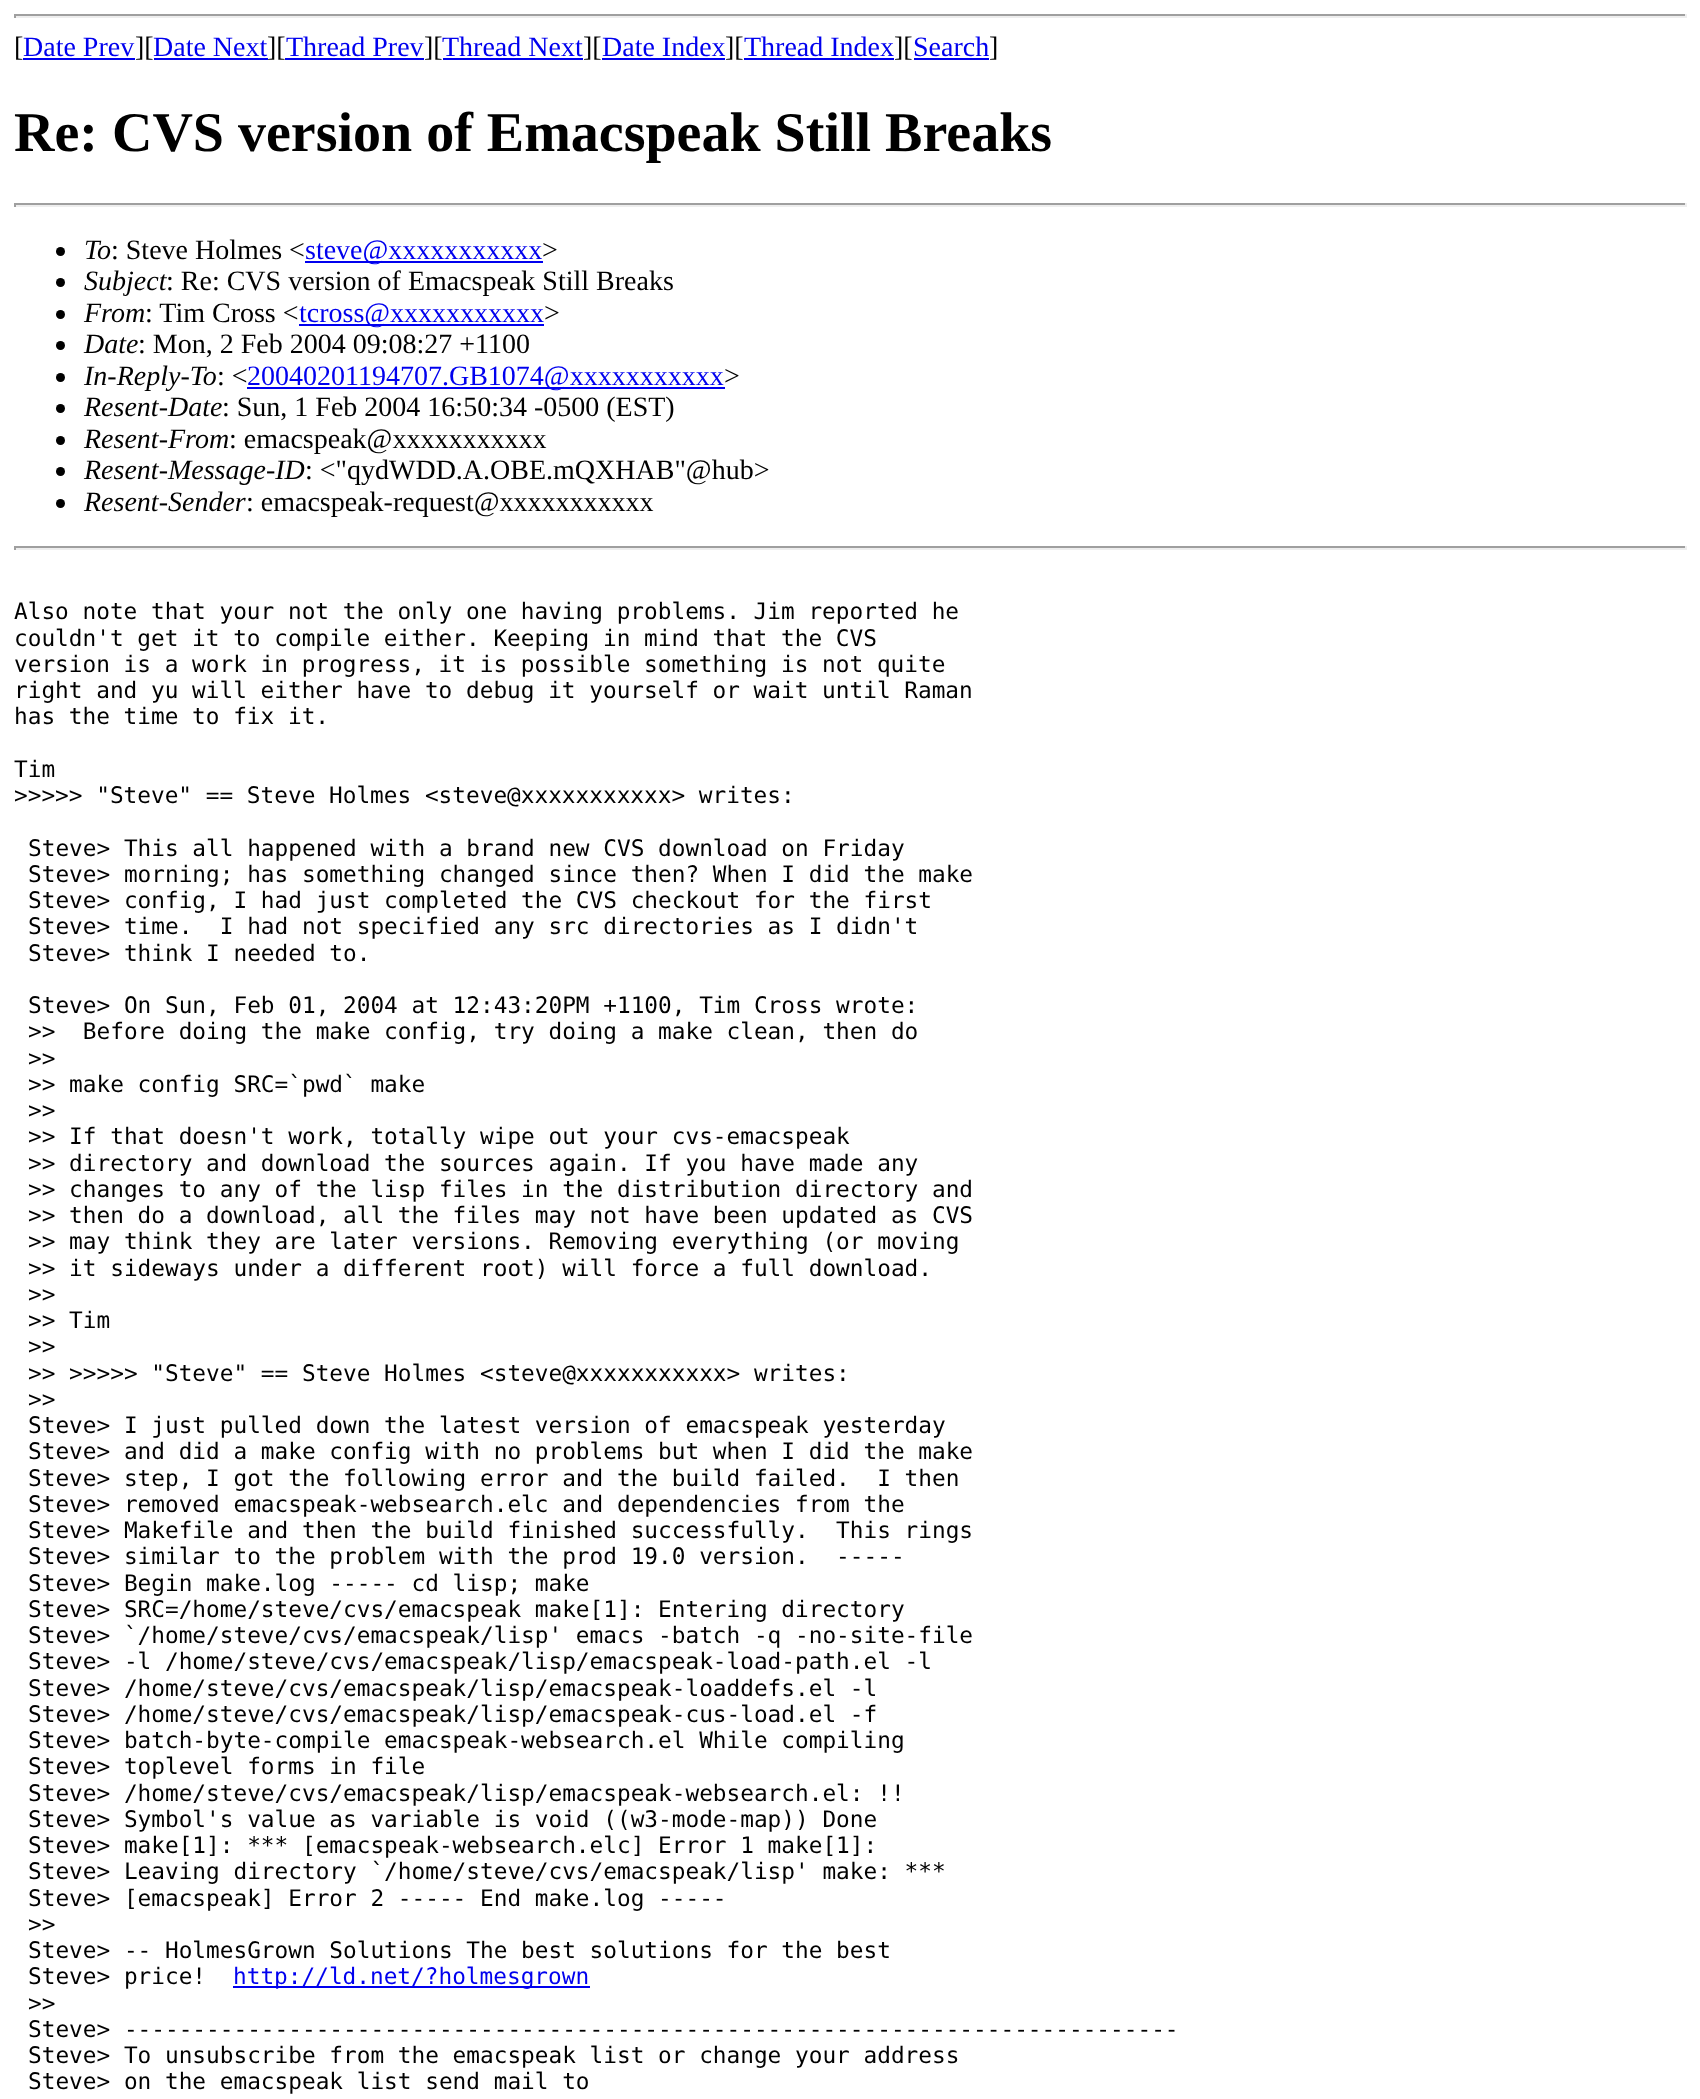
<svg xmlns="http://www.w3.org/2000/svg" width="1700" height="2099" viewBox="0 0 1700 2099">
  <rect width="100%" height="100%" fill="#fff"/>
  <path d="M14 14h1673v2H14z" fill="#9f9f9f"/>
  <path d="M1685 14h2v4H1685z" fill="#eee"/>
  <path d="M14 16h1673v2H14z" fill="#eee"/>
  <path d="M14 14h2v4H14z" fill="#9f9f9f"/>
  <path d="M23 58h112v2H23z" fill="#00e"/>
  <path d="M154 58h114v2H154z" fill="#00e"/>
  <path d="M443 58h140v2H443z" fill="#00e"/>
  <path d="M602 58h123v2H602z" fill="#00e"/>
  <path d="M744 58h150v2H744z" fill="#00e"/>
  <path d="M914 58h75v2H914z" fill="#00e"/>
  <path d="M14 203h1673v2H14z" fill="#9f9f9f"/>
  <path d="M1685 203h2v4H1685z" fill="#eee"/>
  <path d="M14 205h1673v2H14z" fill="#eee"/>
  <path d="M14 203h2v4H14z" fill="#9f9f9f"/>
  <circle cx="60.5" cy="251.5" r="4.5" fill="#000"/>
  <path d="M305 261h238v2H305z" fill="#00e"/>
  <circle cx="60.5" cy="282.5" r="4.5" fill="#000"/>
  <circle cx="60.5" cy="314.5" r="4.5" fill="#000"/>
  <path d="M299 324h245v2H299z" fill="#00e"/>
  <circle cx="60.5" cy="345.5" r="4.5" fill="#000"/>
  <circle cx="60.5" cy="377.5" r="4.5" fill="#000"/>
  <path d="M247 387h478v2H247z" fill="#00e"/>
  <circle cx="60.5" cy="408.5" r="4.5" fill="#000"/>
  <circle cx="60.5" cy="440.5" r="4.5" fill="#000"/>
  <circle cx="60.5" cy="471.5" r="4.5" fill="#000"/>
  <circle cx="60.5" cy="503.5" r="4.5" fill="#000"/>
  <path d="M14 546h1673v2H14z" fill="#9f9f9f"/>
  <path d="M1685 546h2v4H1685z" fill="#eee"/>
  <path d="M14 548h1673v2H14z" fill="#eee"/>
  <path d="M14 546h2v4H14z" fill="#9f9f9f"/>
  <path d="M233 1986h357v2H233z" fill="#00e"/>
  <text x="14" y="56" font-family="Liberation Serif" font-size="28" fill="#000">[</text>
  <text x="23" y="56" font-family="Liberation Serif" font-size="28" fill="#00e">Date Prev</text>
  <text x="135" y="56" font-family="Liberation Serif" font-size="28" fill="#000">][</text>
  <text x="153" y="56" font-family="Liberation Serif" font-size="28" fill="#00e">Date Next</text>
  <text x="267" y="56" font-family="Liberation Serif" font-size="28" fill="#000">][</text>
  <text x="286" y="56" font-family="Liberation Serif" font-size="28" fill="#00e">Thread Prev</text>
  <path d="M285 58h139v2H285z" fill="#00e"/>
  <text x="424" y="56" font-family="Liberation Serif" font-size="28" fill="#000">][</text>
  <text x="442" y="56" font-family="Liberation Serif" font-size="28" fill="#00e">Thread Next</text>
  <text x="583" y="56" font-family="Liberation Serif" font-size="28" fill="#000">][</text>
  <text x="602" y="56" font-family="Liberation Serif" font-size="28" fill="#00e">Date Index</text>
  <text x="725" y="56" font-family="Liberation Serif" font-size="28" fill="#000">][</text>
  <text x="744" y="56" font-family="Liberation Serif" font-size="28" fill="#00e">Thread Index</text>
  <text x="894" y="56" font-family="Liberation Serif" font-size="28" fill="#000">][</text>
  <text x="913" y="56" font-family="Liberation Serif" font-size="28" fill="#00e">Search</text>
  <text x="989" y="56" font-family="Liberation Serif" font-size="28" fill="#000">]</text>
  <text x="14" y="151" font-family="Liberation Serif" font-size="56" font-weight="bold" fill="#000">Re: CVS version of Emacspeak Still Breaks</text>
  <text x="84" y="259" font-family="Liberation Serif" font-size="28" font-style="italic" fill="#000">To</text>
  <text x="111" y="259" font-family="Liberation Serif" font-size="28" fill="#000">: Steve Holmes &lt;</text>
  <text x="305" y="259" font-family="Liberation Serif" font-size="28" fill="#00e">steve@xxxxxxxxxxx</text>
  <text x="542" y="259" font-family="Liberation Serif" font-size="28" fill="#000">&gt;</text>
  <text x="84" y="290" font-family="Liberation Serif" font-size="28" font-style="italic" fill="#000">Subject</text>
  <text x="166" y="290" font-family="Liberation Serif" font-size="28" fill="#000">: Re: CVS version of Emacspeak Still Breaks</text>
  <text x="84" y="322" font-family="Liberation Serif" font-size="28" font-style="italic" fill="#000">From</text>
  <text x="145" y="322" font-family="Liberation Serif" font-size="28" fill="#000">: Tim Cross &lt;</text>
  <text x="299" y="322" font-family="Liberation Serif" font-size="28" fill="#00e">tcross@xxxxxxxxxxx</text>
  <text x="544" y="322" font-family="Liberation Serif" font-size="28" fill="#000">&gt;</text>
  <text x="84" y="353" font-family="Liberation Serif" font-size="28" font-style="italic" fill="#000">Date</text>
  <text x="138" y="353" font-family="Liberation Serif" font-size="28" fill="#000">: Mon, 2 Feb 2004 09:08:27 +1100</text>
  <text x="84" y="385" font-family="Liberation Serif" font-size="28" font-style="italic" fill="#000">In-Reply-To</text>
  <text x="217" y="385" font-family="Liberation Serif" font-size="28" fill="#000">: &lt;</text>
  <text x="247" y="385" font-family="Liberation Serif" font-size="28" fill="#00e">20040201194707.GB1074@xxxxxxxxxxx</text>
  <text x="724" y="385" font-family="Liberation Serif" font-size="28" fill="#000">&gt;</text>
  <text x="84" y="416" font-family="Liberation Serif" font-size="28" font-style="italic" fill="#000">Resent-Date</text>
  <text x="222" y="416" font-family="Liberation Serif" font-size="28" fill="#000">: Sun, 1 Feb 2004 16:50:34 -0500 (EST)</text>
  <text x="84" y="448" font-family="Liberation Serif" font-size="28" font-style="italic" fill="#000">Resent-From</text>
  <text x="229" y="448" font-family="Liberation Serif" font-size="28" fill="#000">: emacspeak@xxxxxxxxxxx</text>
  <text x="84" y="479" font-family="Liberation Serif" font-size="28" font-style="italic" fill="#000">Resent-Message-ID</text>
  <text x="305" y="479" font-family="Liberation Serif" font-size="28" fill="#000">: &lt;"qydWDD.A.OBE.mQXHAB"@hub&gt;</text>
  <text x="84" y="511" font-family="Liberation Serif" font-size="28" font-style="italic" fill="#000">Resent-Sender</text>
  <text x="246" y="511" font-family="Liberation Serif" font-size="28" fill="#000">: emacspeak-request@xxxxxxxxxxx</text>
  <g font-family="DejaVu Sans Mono" font-size="22.75" fill="#000">
    <text x="14" y="619">Also note that your not the only one having problems. Jim reported he</text>
    <text x="14" y="646">couldn't get it to compile either. Keeping in mind that the CVS</text>
    <text x="14" y="672">version is a work in progress, it is possible something is not quite</text>
    <text x="14" y="698">right and yu will either have to debug it yourself or wait until Raman</text>
    <text x="14" y="724">has the time to fix it.</text>
    <text x="14" y="777">Tim</text>
    <text x="14" y="803">&gt;&gt;&gt;&gt;&gt; "Steve" == Steve Holmes &lt;steve@xxxxxxxxxxx&gt; writes:</text>
    <text x="28" y="856">Steve&gt; This all happened with a brand new CVS download on Friday</text>
    <text x="28" y="882">Steve&gt; morning; has something changed since then? When I did the make</text>
    <text x="28" y="908">Steve&gt; config, I had just completed the CVS checkout for the first</text>
    <text x="28" y="934" xml:space="preserve">Steve&gt; time.  I had not specified any src directories as I didn't</text>
    <text x="28" y="961">Steve&gt; think I needed to.</text>
    <text x="28" y="1013">Steve&gt; On Sun, Feb 01, 2004 at 12:43:20PM +1100, Tim Cross wrote:</text>
    <text x="28" y="1039" xml:space="preserve">&gt;&gt;  Before doing the make config, try doing a make clean, then do</text>
    <text x="28" y="1066">&gt;&gt;</text>
    <text x="28" y="1092">&gt;&gt; make config SRC=`pwd` make</text>
    <text x="28" y="1118">&gt;&gt;</text>
    <text x="28" y="1144">&gt;&gt; If that doesn't work, totally wipe out your cvs-emacspeak</text>
    <text x="28" y="1171">&gt;&gt; directory and download the sources again. If you have made any</text>
    <text x="28" y="1197">&gt;&gt; changes to any of the lisp files in the distribution directory and</text>
    <text x="28" y="1223">&gt;&gt; then do a download, all the files may not have been updated as CVS</text>
    <text x="28" y="1249">&gt;&gt; may think they are later versions. Removing everything (or moving</text>
    <text x="28" y="1276">&gt;&gt; it sideways under a different root) will force a full download.</text>
    <text x="28" y="1302">&gt;&gt;</text>
    <text x="28" y="1328">&gt;&gt; Tim</text>
    <text x="28" y="1354">&gt;&gt;</text>
    <text x="28" y="1381">&gt;&gt; &gt;&gt;&gt;&gt;&gt; "Steve" == Steve Holmes &lt;steve@xxxxxxxxxxx&gt; writes:</text>
    <text x="28" y="1407">&gt;&gt;</text>
    <text x="28" y="1433">Steve&gt; I just pulled down the latest version of emacspeak yesterday</text>
    <text x="28" y="1459">Steve&gt; and did a make config with no problems but when I did the make</text>
    <text x="28" y="1486" xml:space="preserve">Steve&gt; step, I got the following error and the build failed.  I then</text>
    <text x="28" y="1512">Steve&gt; removed emacspeak-websearch.elc and dependencies from the</text>
    <text x="28" y="1538" xml:space="preserve">Steve&gt; Makefile and then the build finished successfully.  This rings</text>
    <text x="28" y="1564" xml:space="preserve">Steve&gt; similar to the problem with the prod 19.0 version.  -----</text>
    <text x="28" y="1591">Steve&gt; Begin make.log ----- cd lisp; make</text>
    <text x="28" y="1617">Steve&gt; SRC=/home/steve/cvs/emacspeak make[1]: Entering directory</text>
    <text x="28" y="1643">Steve&gt; `/home/steve/cvs/emacspeak/lisp' emacs -batch -q -no-site-file</text>
    <text x="28" y="1669">Steve&gt; -l /home/steve/cvs/emacspeak/lisp/emacspeak-load-path.el -l</text>
    <text x="28" y="1696">Steve&gt; /home/steve/cvs/emacspeak/lisp/emacspeak-loaddefs.el -l</text>
    <text x="28" y="1722">Steve&gt; /home/steve/cvs/emacspeak/lisp/emacspeak-cus-load.el -f</text>
    <text x="28" y="1748">Steve&gt; batch-byte-compile emacspeak-websearch.el While compiling</text>
    <text x="28" y="1774">Steve&gt; toplevel forms in file</text>
    <text x="28" y="1801">Steve&gt; /home/steve/cvs/emacspeak/lisp/emacspeak-websearch.el: !!</text>
    <text x="28" y="1827">Steve&gt; Symbol's value as variable is void ((w3-mode-map)) Done</text>
    <text x="28" y="1853">Steve&gt; make[1]: *** [emacspeak-websearch.elc] Error 1 make[1]:</text>
    <text x="28" y="1879">Steve&gt; Leaving directory `/home/steve/cvs/emacspeak/lisp' make: ***</text>
    <text x="28" y="1906">Steve&gt; [emacspeak] Error 2 ----- End make.log -----</text>
    <text x="28" y="1932">&gt;&gt;</text>
    <text x="28" y="1958">Steve&gt; -- HolmesGrown Solutions The best solutions for the best</text>
    <text x="28" y="1984">Steve&gt; price!</text>
  </g>
  <text x="233" y="1984" font-family="DejaVu Sans Mono" font-size="22.75" fill="#00e">http://ld.net/?holmesgrown</text>
  <g font-family="DejaVu Sans Mono" font-size="22.75" fill="#000">
    <text x="28" y="2011">&gt;&gt;</text>
    <text x="28" y="2037">Steve&gt; -----------------------------------------------------------------------------</text>
    <text x="28" y="2063">Steve&gt; To unsubscribe from the emacspeak list or change your address</text>
    <text x="28" y="2089">Steve&gt; on the emacspeak list send mail to</text>
  </g>
</svg>
